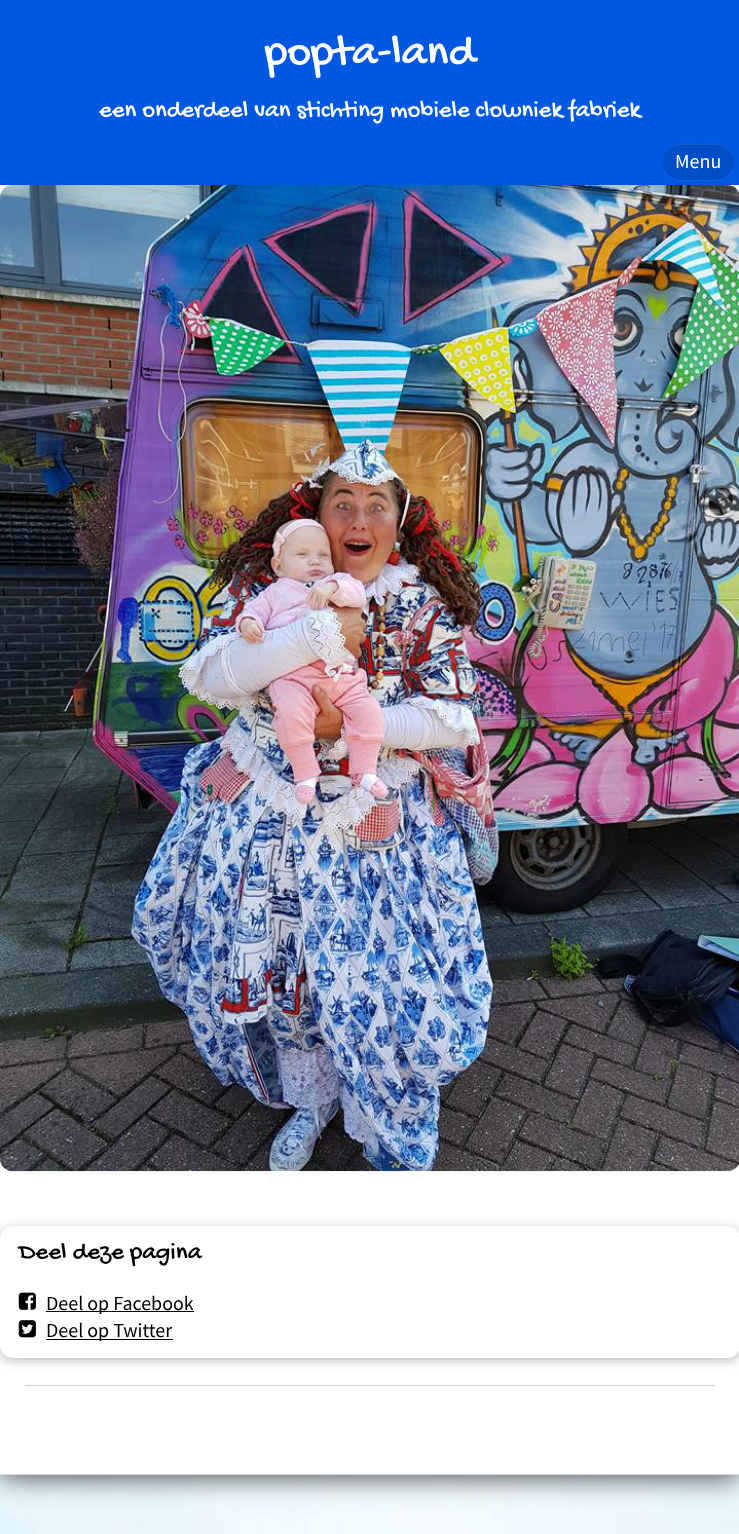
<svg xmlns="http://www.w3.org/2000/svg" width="739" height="1534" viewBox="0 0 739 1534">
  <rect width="100%" height="100%" fill="#fff"/>
  <image x="0" y="1475" width="739" height="59" href="img/1.png"/>
  <path d="M0 0h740v1475H0z" fill="#000000cc" filter="blur(15px)"/>
  <path d="M0 185h739v1289H0z" fill="#fff"/>
  <path d="M0 1474h739v1H0z" fill="#d9d9d9"/>
  <path d="M0 0h739v185H0z" fill="#0058e0"/>
  <path d="M664 170C670 184 686 181 698 181C711 181 727 184 733 170C734 166 734 162 733 159C734 163 733 168 731 172C723 183 709 180 698 180C686 180 671 183 664 170Z" fill="#1365e2"/>
  <rect x="663" y="144" width="71" height="36" rx="18" fill="#004ec7"/>
  <path d="M681 145H716C726 145 734 153 734 162C734 159 733 155 731 152C724 141 710 144 698 144C687 144 673 141 666 152C669 148 675 145 681 145Z" fill="#ffffff1a"/>
  <image x="0" y="185" width="739" height="987" href="img/2.png"/>
  <rect y="1229" width="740" height="131" rx="13" fill="#0000004a" filter="blur(6px)"/>
  <rect y="1226" width="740" height="132" rx="13" fill="#fff"/>
  <image x="18" y="1292" width="18" height="18" href="img/3.png"/>
  <path d="M46 1311h148v1H46z" fill="#000"/>
  <image x="18" y="1320" width="18" height="18" href="img/4.png"/>
  <path d="M46 1339h127v1H46z" fill="#000"/>
  <path d="M25 1385h690v1H25z" fill="#ccc"/>
  <text x="265" y="63" font-family="Gochi Hand" font-size="45.5" fill="#fff">popta-land</text>
  <text x="99" y="116" font-family="Gochi Hand" font-size="24.75" fill="#fff">een onderdeel van stichting mobiele clowniek fabriek</text>
  <text x="675" y="168" font-family="Source Sans Pro" font-size="20" fill="#fff">Menu</text>
  <text x="19" y="1258" font-family="Gochi Hand" font-size="25" fill="#000">Deel deze pagina</text>
  <g font-family="Source Sans Pro" font-size="20" fill="#000">
    <text x="46" y="1310">Deel op Facebook</text>
    <text x="46" y="1337">Deel op Twitter</text>
  </g>
</svg>
